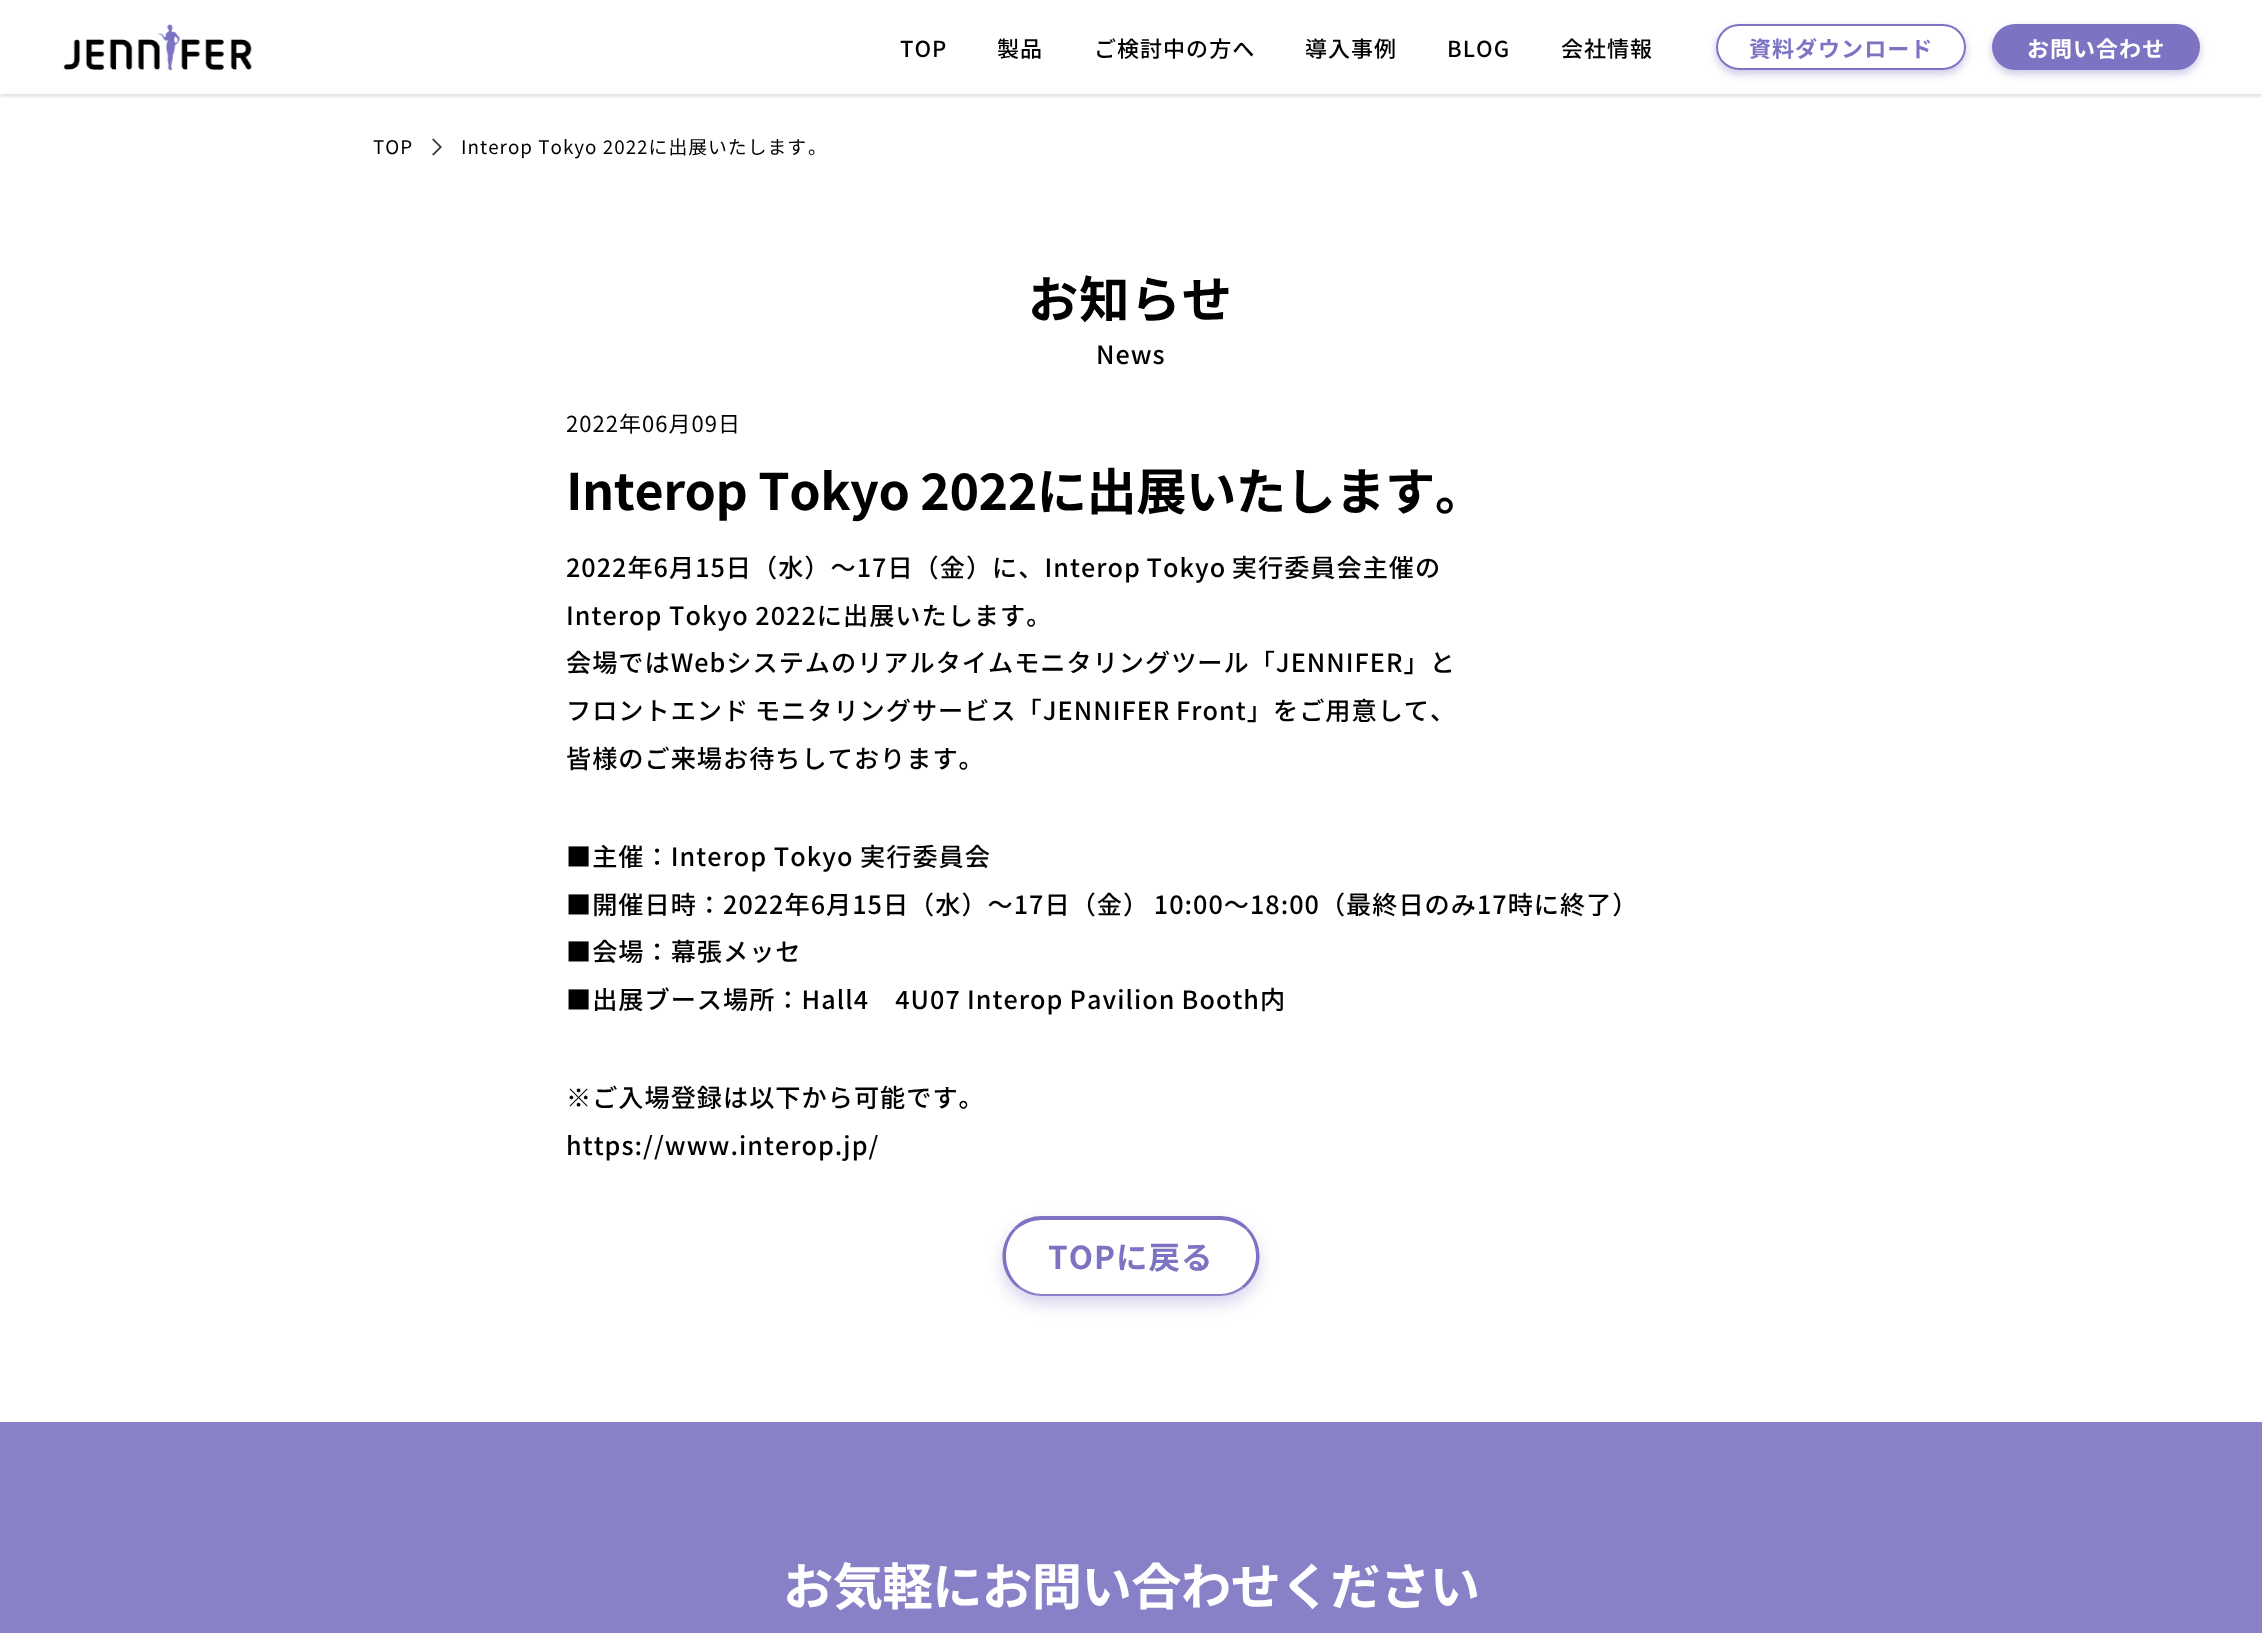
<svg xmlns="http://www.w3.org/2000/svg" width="2262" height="1633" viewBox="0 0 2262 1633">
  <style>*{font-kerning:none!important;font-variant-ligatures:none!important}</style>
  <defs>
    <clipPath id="clip1"><path d="M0 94h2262v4H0z"/></clipPath>
    <clipPath id="clip2"><path d="M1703 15H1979V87H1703ZM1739 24H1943C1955.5 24 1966 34.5 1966 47C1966 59.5 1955.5 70 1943 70H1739C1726.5 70 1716 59.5 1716 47C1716 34.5 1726.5 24 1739 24Z" clip-rule="evenodd"/></clipPath>
    <clipPath id="clip3"><path d="M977 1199H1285V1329H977ZM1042 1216H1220C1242 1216 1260 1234 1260 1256C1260 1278 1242 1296 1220 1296H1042C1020 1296 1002 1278 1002 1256C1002 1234 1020 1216 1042 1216Z" clip-rule="evenodd"/></clipPath>
  </defs>
  <rect width="100%" height="100%" fill="#fff"/>
  <g clip-path="url(#clip1)">
    <path d="M0 2h2262v94H0z" fill="#00000026" filter="blur(2px)"/>
  </g>
  <image x="63" y="24" width="189" height="47" href="img/1.png"/>
  <g clip-path="url(#clip2)">
    <rect x="1716" y="28" width="250" height="46" rx="23" fill="#7c73c266" filter="blur(4px)"/>
  </g>
  <rect x="1717" y="25" width="248" height="44" rx="22" fill="none" stroke="#7c73c2" stroke-width="2"/>
  <rect x="1992" y="28" width="208" height="46" rx="23" fill="#7c73c266" filter="blur(4px)"/>
  <rect x="1992" y="24" width="208" height="46" rx="23" fill="#7c73c2"/>
  <path d="M433.5 138.5L432 139.5L439.5 147L432 154.5L433.5 155.5L442 147Z" fill="#323937"/>
  <g clip-path="url(#clip3)">
    <rect x="1002" y="1224" width="258" height="80" rx="40" fill="#7c73c24d" filter="blur(8px)"/>
  </g>
  <path d="M1042 1216C1031 1216 1021 1220 1014 1228L1016 1230C1023 1224 1032 1220 1042 1220H1220C1230 1220 1239 1224 1246 1230L1248 1228C1241 1220 1231 1216 1220 1216Z" fill="#7c73c2"/>
  <path d="M1248 1228C1265 1245 1263 1274 1244 1288L1241 1287C1259 1273 1261 1246 1246 1230Z" fill="#7c73c2"/>
  <path d="M1042 1296H1220C1229 1296 1237 1293 1244 1288L1241 1287C1235 1291 1228 1294 1220 1294H1042C1034 1294 1027 1291 1021 1287L1018 1288C1025 1293 1033 1296 1042 1296Z" fill="#8981c8"/>
  <path d="M1018 1288C999 1274 997 1245 1014 1228L1016 1230C1001 1246 1003 1273 1021 1287Z" fill="#7c73c2"/>
  <path d="M0 1422h2262v211H0z" fill="#8981c8"/>
  <g font-family="Noto Sans JP" font-size="22" font-weight="500" letter-spacing="1.03" fill="#000">
    <text x="900" y="57">TOP</text>
    <text x="997" y="57">製品</text>
    <text x="1094" y="57">ご検討中の方へ</text>
    <text x="1305" y="57">導入事例</text>
    <text x="1447" y="57">BLOG</text>
    <text x="1561" y="57">会社情報</text>
  </g>
  <text x="1749" y="57" font-family="Noto Sans JP" font-size="22" font-weight="bold" letter-spacing="1.03" fill="#7c73c2">資料ダウンロード</text>
  <text x="2027" y="57" font-family="Noto Sans JP" font-size="22" font-weight="bold" letter-spacing="1.03" fill="#fff">お問い合わせ</text>
  <g font-family="Noto Sans JP" font-size="18.8" letter-spacing="1.03" fill="#000">
    <text x="373" y="154">TOP</text>
    <text x="461" y="154">Interop Tokyo 2022に出展いたします</text>
    <text x="808" y="154">。</text>
  </g>
  <text x="1028" y="318" font-family="Noto Sans JP" font-size="50.25" font-weight="bold" letter-spacing="1.03" fill="#000">お知らせ</text>
  <text x="1096" y="364" font-family="Noto Sans JP" font-size="25.15" font-weight="500" letter-spacing="1.03" fill="#000">News</text>
  <text x="566" y="432" font-family="Noto Sans JP" font-size="22" letter-spacing="1.03" fill="#000">2022年06月09日</text>
  <text x="566" y="510" font-family="Noto Sans JP" font-size="50.25" font-weight="bold" letter-spacing="-0.5" fill="#000">Interop Tokyo 2022に出展いたします</text>
  <text x="1435" y="510" font-family="Noto Sans JP" font-size="50.25" font-weight="bold" letter-spacing="-0.5" fill="#000">。</text>
  <g font-family="Noto Sans JP" font-size="25.15" font-weight="500" letter-spacing="1.03" fill="#000">
    <text x="566" y="577" word-spacing="-1">2022年6月15日（水）～17日（金）に、Interop Tokyo 実行委員会主催の</text>
    <text x="566" y="625">Interop Tokyo 2022に出展いたします。</text>
    <text x="566" y="672">会場ではWebシステムのリアルタイムモニタリングツール「JENNIFER」と</text>
    <text x="566" y="720" word-spacing="-1">フロントエンド モニタリングサービス「JENNIFER Front」をご用意して、</text>
    <text x="566" y="768">皆様のご来場お待ちしております。</text>
    <text x="566" y="866">■主催：Interop Tokyo 実行委員会</text>
    <text x="566" y="914" word-spacing="-2">■開催日時：2022年6月15日（水）～17日（金） 10:00～18:00（最終日のみ17時に終了）</text>
    <text x="566" y="961">■会場：幕張メッセ</text>
    <text x="566" y="1009" word-spacing="-0.5">■出展ブース場所：Hall4　4U07 Interop Pavilion Booth内</text>
    <text x="566" y="1107">※ご入場登録は以下から可能です。</text>
    <text x="566" y="1155">https://www.interop.jp/</text>
  </g>
  <text x="1048" y="1269" font-family="Noto Sans JP" font-size="31.5" font-weight="bold" letter-spacing="1.03" fill="#7c73c2">TOPに戻る</text>
  <text x="783" y="1605" font-family="Noto Sans JP" font-size="50.25" font-weight="bold" letter-spacing="-0.5" fill="#fff">お気軽にお問い合わせください</text>
</svg>
